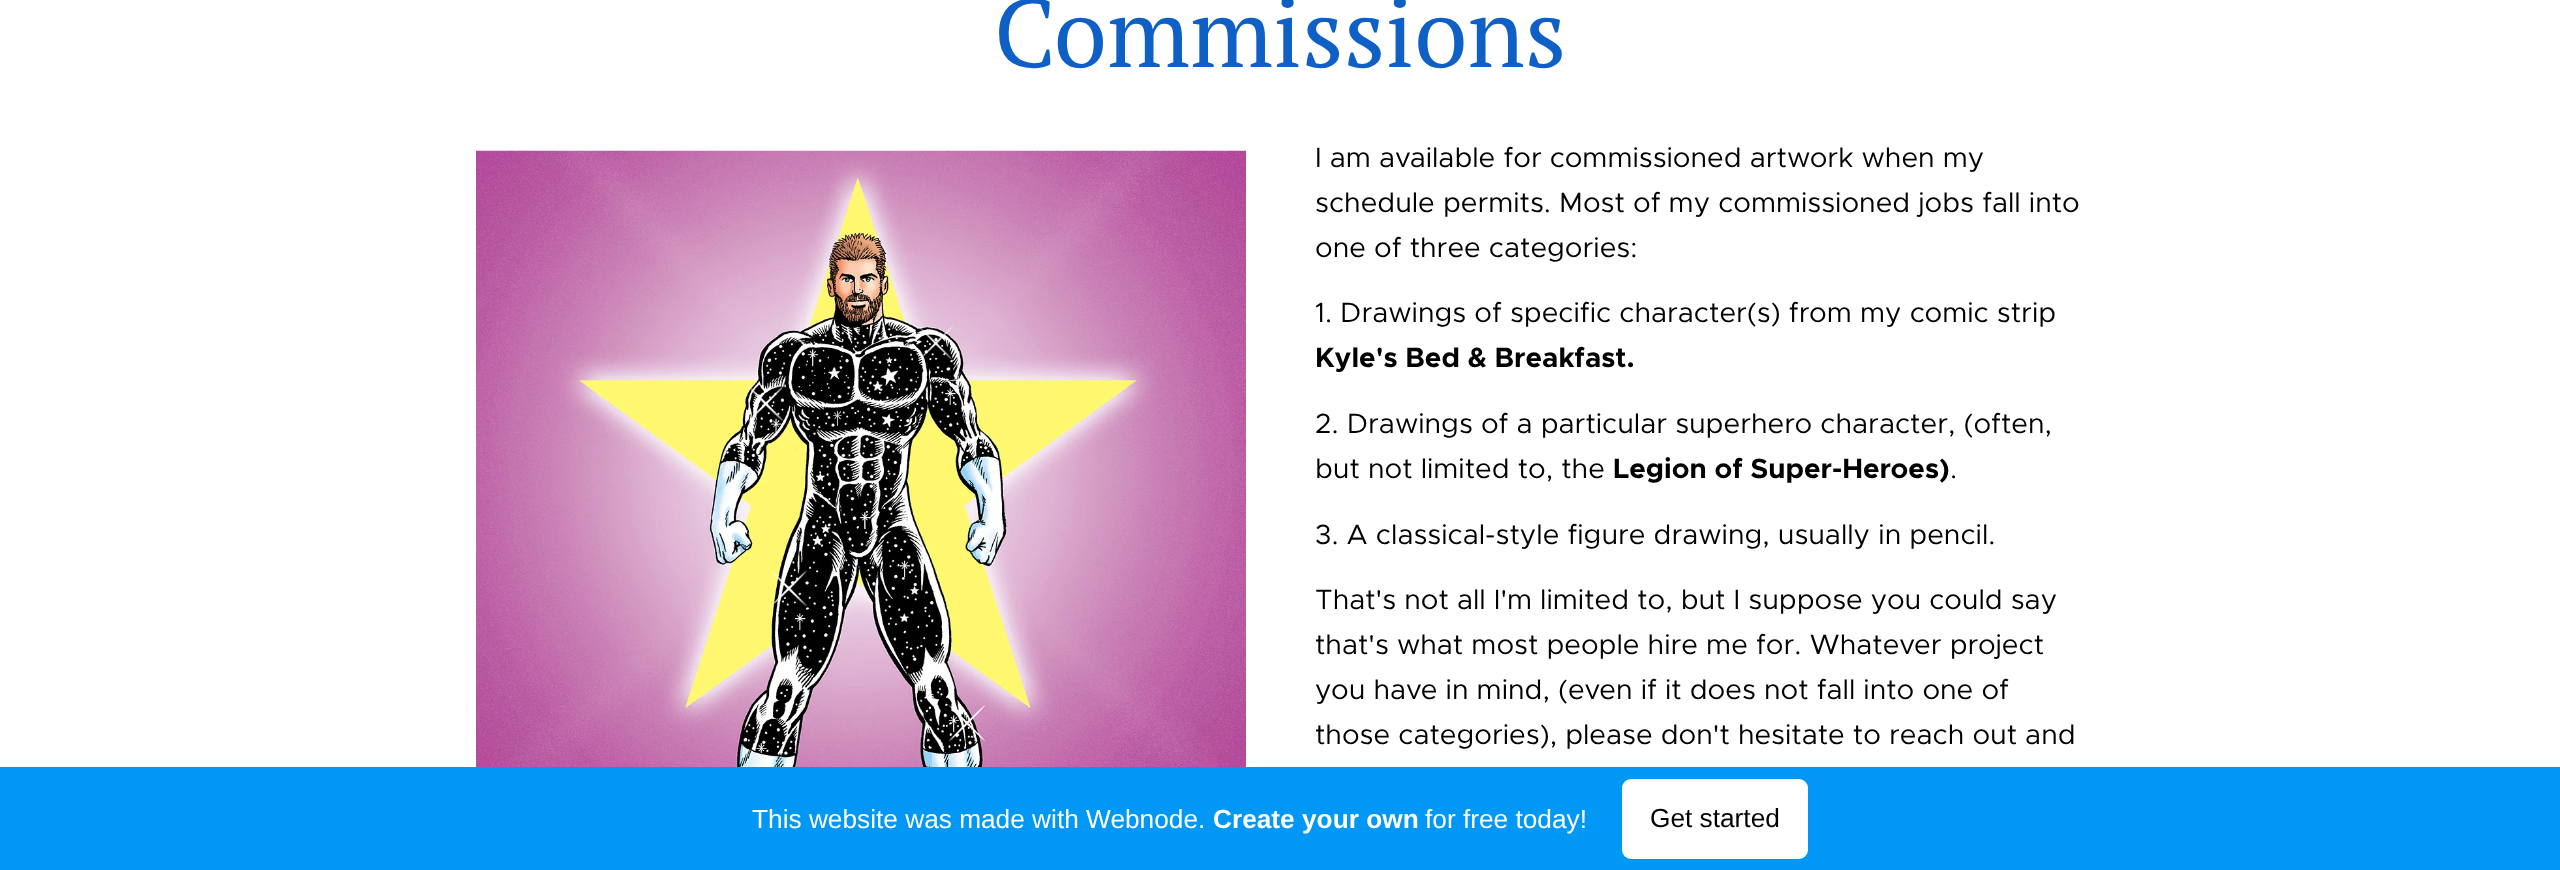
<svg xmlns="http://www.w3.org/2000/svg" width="2560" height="870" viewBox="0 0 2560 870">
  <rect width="100%" height="100%" fill="#fff"/>
  <image x="476" y="150" width="770" height="617" href="img/1.png"/>
  <path d="M0 767h2560v103H0z" fill="#0097f5"/>
  <rect x="1622" y="779" width="186" height="80" rx="9" fill="#fff"/>
  <text x="994" y="67" font-family="PT Serif" font-size="96.25" fill="#0e60c6">Commissions</text>
  <g font-family="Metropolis" font-size="28" fill="#000">
    <text x="1315" y="167">I am available for commissioned artwork when my</text>
    <text x="1315" y="212">schedule permits. Most of my commissioned jobs fall into</text>
    <text x="1315" y="257">one of three categories:</text>
    <text x="1315" y="322">1. Drawings of specific character(s) from my comic strip</text>
  </g>
  <text x="1315" y="367" font-family="Metropolis" font-size="28" font-weight="bold" fill="#000">Kyle's Bed &amp; Breakfast.</text>
  <g font-family="Metropolis" font-size="28" fill="#000">
    <text x="1315" y="433">2. Drawings of a particular superhero character, (often,</text>
    <text x="1315" y="478">but not limited to, the</text>
  </g>
  <text x="1613" y="478" font-family="Metropolis" font-size="28" font-weight="bold" fill="#000">Legion of Super-Heroes)</text>
  <g font-family="Metropolis" font-size="28" fill="#000">
    <text x="1950" y="478">.</text>
    <text x="1315" y="544">3. A classical-style figure drawing, usually in pencil.</text>
    <text x="1315" y="609">That's not all I'm limited to, but I suppose you could say</text>
    <text x="1315" y="654">that's what most people hire me for. Whatever project</text>
    <text x="1315" y="699">you have in mind, (even if it does not fall into one of</text>
    <text x="1315" y="744">those categories), please don't hesitate to reach out and</text>
  </g>
  <text x="752" y="828" font-family="Liberation Sans" font-size="26.25" fill="#fff">This website was made with Webnode.</text>
  <text x="1213" y="828" font-family="Liberation Sans" font-size="26.25" font-weight="bold" fill="#fff">Create your own</text>
  <text x="1425" y="828" font-family="Liberation Sans" font-size="26.25" fill="#fff">for free today!</text>
  <text x="1650" y="827" font-family="Liberation Sans" font-size="26.25" fill="#000">Get started</text>
</svg>
